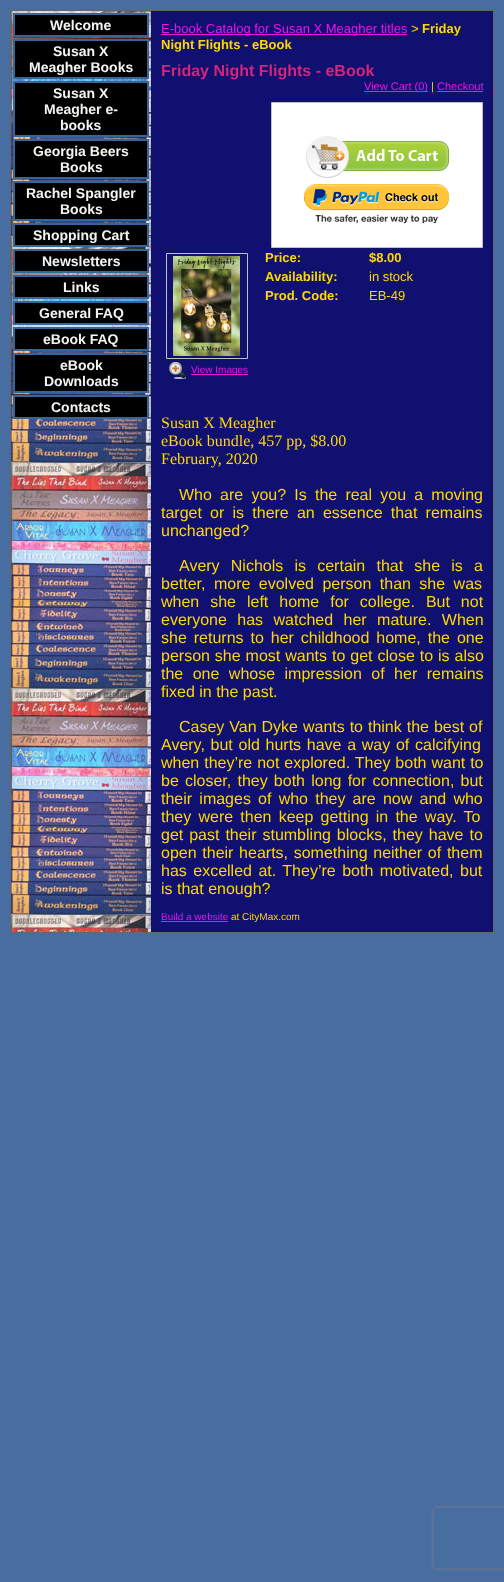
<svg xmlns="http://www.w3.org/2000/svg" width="504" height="1582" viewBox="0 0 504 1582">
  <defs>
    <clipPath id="clip1"><path d="M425 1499H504V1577H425ZM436 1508H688C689 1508 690 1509 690 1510V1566C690 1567 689 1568 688 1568H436C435 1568 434 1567 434 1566V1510C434 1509 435 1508 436 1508Z" clip-rule="evenodd"/></clipPath>
  </defs>
  <rect width="100%" height="100%" fill="#486da1"/>
  <path d="M10 10h484v923H10z" fill="#666"/>
  <image x="11" y="11" width="140" height="921" href="img/1.png"/>
  <path d="M13 13h136v24H13z" fill="#369"/>
  <path d="M15 15h132v20H15z" fill="#000"/>
  <path d="M13 39h136v40H13z" fill="#369"/>
  <path d="M15 41h132v36H15z" fill="#000"/>
  <path d="M13 81h136v56H13z" fill="#369"/>
  <path d="M15 83h132v52H15z" fill="#000"/>
  <path d="M13 139h136v40H13z" fill="#369"/>
  <path d="M15 141h132v36H15z" fill="#000"/>
  <path d="M13 181h136v40H13z" fill="#369"/>
  <path d="M15 183h132v36H15z" fill="#000"/>
  <path d="M13 223h136v24H13z" fill="#369"/>
  <path d="M15 225h132v20H15z" fill="#000"/>
  <path d="M13 249h136v24H13z" fill="#369"/>
  <path d="M15 251h132v20H15z" fill="#000"/>
  <path d="M13 275h136v24H13z" fill="#369"/>
  <path d="M15 277h132v20H15z" fill="#000"/>
  <path d="M13 301h136v24H13z" fill="#369"/>
  <path d="M15 303h132v20H15z" fill="#000"/>
  <path d="M13 327h136v24H13z" fill="#369"/>
  <path d="M15 329h132v20H15z" fill="#000"/>
  <path d="M13 353h136v40H13z" fill="#369"/>
  <path d="M15 355h132v36H15z" fill="#000"/>
  <path d="M13 395h136v24H13z" fill="#369"/>
  <path d="M15 397h132v20H15z" fill="#000"/>
  <path d="M151 11h342v921H151z" fill="#101070"/>
  <path d="M161 34h246v1H161z" fill="#ed13ed"/>
  <path d="M364 91h64v1H364z" fill="#ed13ed"/>
  <path d="M437 91h46v1H437z" fill="#ed13ed"/>
  <path d="M271.5 102.5h211v145H271.5z" fill="#fff" stroke="#c0c0c0"/>
  <image x="306" y="136" width="143" height="42" href="img/2.png"/>
  <image x="304" y="184" width="145" height="40" href="img/3.png"/>
  <path d="M166.5 253.5h81v105H166.5z" fill="none" stroke="#c0c0c0"/>
  <image x="173" y="256" width="67" height="100" href="img/4.png"/>
  <image x="169" y="362" width="17" height="17" href="img/5.png"/>
  <path d="M191 374h57v1H191z" fill="#ed13ed"/>
  <path d="M161 921h67v1H161z" fill="#ed13ed"/>
  <g clip-path="url(#clip1)">
    <rect x="434" y="1508" width="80" height="60" rx="2" fill="#808080" filter="blur(2.5px)"/>
  </g>
  <g font-family="Liberation Sans" font-size="14" font-weight="bold" fill="#f5f5f0">
    <text x="50" y="30">Welcome</text>
    <text x="53" y="56">Susan X</text>
    <text x="29" y="72">Meagher Books</text>
    <text x="53" y="98">Susan X</text>
    <text x="44" y="114">Meagher e-</text>
    <text x="60" y="130">books</text>
    <text x="33" y="156">Georgia Beers</text>
    <text x="60" y="172">Books</text>
    <text x="26" y="198">Rachel Spangler</text>
    <text x="60" y="214">Books</text>
    <text x="33" y="240">Shopping Cart</text>
    <text x="42" y="266">Newsletters</text>
    <text x="63" y="292">Links</text>
    <text x="39" y="318">General FAQ</text>
    <text x="43" y="344">eBook FAQ</text>
    <text x="60" y="370">eBook</text>
    <text x="44" y="386">Downloads</text>
    <text x="51" y="412">Contacts</text>
  </g>
  <text x="161" y="33" font-family="Liberation Sans" font-size="13" fill="#ed13ed">E-book Catalog for Susan X Meagher titles</text>
  <text x="411" y="33" font-family="Liberation Mono" font-size="13" fill="#ffd800">&gt;</text>
  <g font-family="Liberation Sans" font-size="13" font-weight="bold" fill="#ffd800">
    <text x="422" y="33">Friday</text>
    <text x="161" y="49">Night Flights - eBook</text>
  </g>
  <text x="161" y="76" font-family="Liberation Sans" font-size="16" font-weight="bold" fill="#d5247c">Friday Night Flights - eBook</text>
  <text x="364" y="90" font-family="Liberation Sans" font-size="11" fill="#ed13ed">View Cart (0)</text>
  <text x="431" y="90" font-family="Liberation Sans" font-size="11" fill="#ffd800">|</text>
  <text x="437" y="90" font-family="Liberation Sans" font-size="11" fill="#ed13ed">Checkout</text>
  <g font-family="Liberation Sans" font-size="13" font-weight="bold" fill="#ffd800">
    <text x="265" y="262">Price:</text>
    <text x="369" y="262">$8.00</text>
    <text x="265" y="281">Availability:</text>
  </g>
  <text x="369" y="281" font-family="Liberation Sans" font-size="13" fill="#ffd800">in stock</text>
  <text x="265" y="300" font-family="Liberation Sans" font-size="13" font-weight="bold" fill="#ffd800">Prod. Code:</text>
  <text x="369" y="300" font-family="Liberation Sans" font-size="13" fill="#ffd800">EB-49</text>
  <text x="191" y="373" font-family="Liberation Sans" font-size="10" fill="#ed13ed">View Images</text>
  <g font-family="Liberation Serif" font-size="16" fill="#ffd800">
    <text x="161" y="428">Susan X Meagher</text>
    <text x="161" y="446">eBook bundle, 457 pp, $8.00</text>
    <text x="161" y="464">February, 2020</text>
  </g>
  <g font-family="Liberation Sans" font-size="16" fill="#ffd800">
    <text x="179" y="500" word-spacing="3.75">Who are you? Is the real you a moving</text>
    <text x="161" y="518" word-spacing="3.75">target or is there an essence that remains</text>
    <text x="161" y="536">unchanged?</text>
    <text x="179" y="571" word-spacing="6.75">Avery Nichols is certain that she is a</text>
    <text x="161" y="589" word-spacing="4">better, more evolved person than she was</text>
    <text x="161" y="607" word-spacing="6.5">when she left home for college. But not</text>
    <text x="161" y="625" word-spacing="6">everyone has watched her mature. When</text>
    <text x="161" y="643" word-spacing="2.5">she returns to her childhood home, the one</text>
    <text x="161" y="661" word-spacing="0.5">person she most wants to get close to is also</text>
    <text x="161" y="679" word-spacing="5">the one whose impression of her remains</text>
    <text x="161" y="697">fixed in the past.</text>
    <text x="179" y="732" word-spacing="0.5">Casey Van Dyke wants to think the best of</text>
    <text x="161" y="750" word-spacing="1.25">Avery, but old hurts have a way of calcifying</text>
    <text x="161" y="768" word-spacing="0.5">when they’re not explored. They both want to</text>
    <text x="161" y="786" word-spacing="1.75">be closer, they both long for connection, but</text>
    <text x="161" y="804" word-spacing="2.75">their images of who they are now and who</text>
    <text x="161" y="822" word-spacing="2.75">they were then keep getting in the way. To</text>
    <text x="161" y="840" word-spacing="1.5">get past their stumbling blocks, they have to</text>
    <text x="161" y="858" word-spacing="1.25">open their hearts, something neither of them</text>
    <text x="161" y="876" word-spacing="2">has excelled at. They’re both motivated, but</text>
    <text x="161" y="894">is that enough?</text>
  </g>
  <text x="161" y="920" font-family="Liberation Sans" font-size="10" fill="#ed13ed">Build a website</text>
  <text x="231" y="920" font-family="Liberation Sans" font-size="10" fill="#ffd800">at CityMax.com</text>
</svg>
